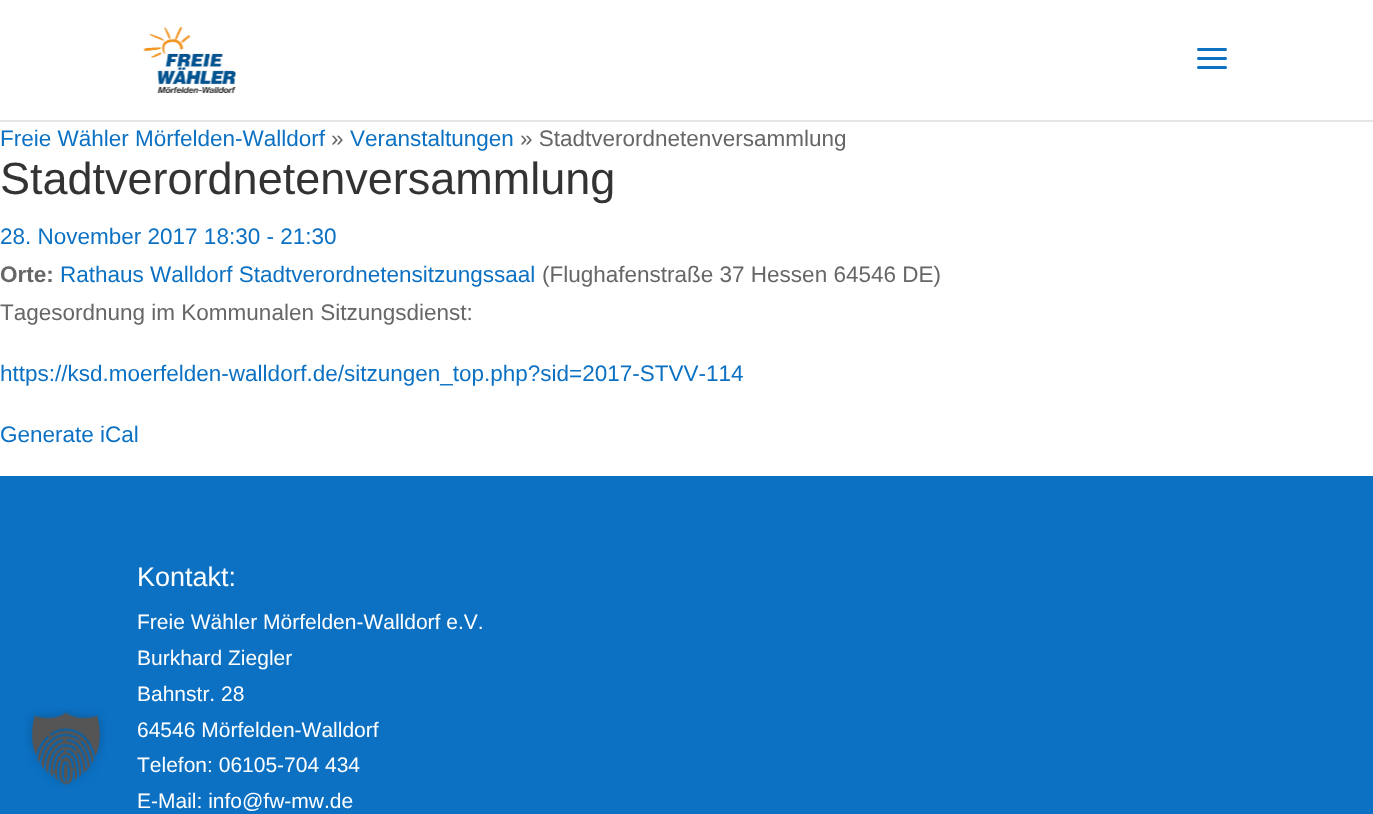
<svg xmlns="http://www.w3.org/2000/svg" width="1373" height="814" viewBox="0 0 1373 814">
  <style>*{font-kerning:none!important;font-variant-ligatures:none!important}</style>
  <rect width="100%" height="100%" fill="#fff"/>
  <path d="M0 120h1373v2H0z" fill="#e6e6e6"/>
  <image x="143" y="27" width="93" height="66" href="img/1.png"/>
  <image x="1197" y="48" width="30" height="21" href="img/2.png"/>
  <path d="M0 476h1373v338H0z" fill="#0c71c3"/>
  <image x="25" y="708" width="81" height="80" href="img/3.png"/>
  <text x="0" y="146" font-family="Liberation Sans" font-size="22.5" fill="#0c71c3">Freie Wähler Mörfelden-Walldorf</text>
  <text x="331" y="146" font-family="Liberation Sans" font-size="22.5" fill="#666">»</text>
  <text x="350" y="146" font-family="Liberation Sans" font-size="22.5" fill="#0c71c3">Veranstaltungen</text>
  <text x="520" y="146" font-family="Liberation Sans" font-size="22.5" fill="#666">» Stadtverordnetenversammlung</text>
  <text x="0" y="194" font-family="Liberation Sans" font-size="45" fill="#333">Stadtverordnetenversammlung</text>
  <text x="0" y="244" font-family="Liberation Sans" font-size="22.5" fill="#0c71c3">28. November 2017 18:30 - 21:30</text>
  <text x="0" y="282" font-family="Liberation Sans" font-size="22.5" font-weight="bold" fill="#666">Orte:</text>
  <text x="60" y="282" font-family="Liberation Sans" font-size="22.5" fill="#0c71c3">Rathaus Walldorf Stadtverordnetensitzungssaal</text>
  <g font-family="Liberation Sans" font-size="22.5" fill="#666">
    <text x="542" y="282">(Flughafenstraße 37 Hessen 64546 DE)</text>
    <text x="0" y="320">Tagesordnung im Kommunalen Sitzungsdienst:</text>
  </g>
  <g font-family="Liberation Sans" font-size="22.5" fill="#0c71c3">
    <text x="0" y="381">https://ksd.moerfelden-walldorf.de/sitzungen_top.php?sid=2017-STVV-114</text>
    <text x="0" y="442">Generate iCal</text>
  </g>
  <text x="137" y="586" font-family="Liberation Sans" font-size="27" fill="#fff">Kontakt:</text>
  <g font-family="Liberation Sans" font-size="21" fill="#fff">
    <text x="137" y="629">Freie Wähler Mörfelden-Walldorf e.V.</text>
    <text x="137" y="665">Burkhard Ziegler</text>
    <text x="137" y="701">Bahnstr. 28</text>
    <text x="137" y="737">64546 Mörfelden-Walldorf</text>
    <text x="137" y="772">Telefon: 06105-704 434</text>
    <text x="137" y="808">E-Mail: info@fw-mw.de</text>
  </g>
</svg>
